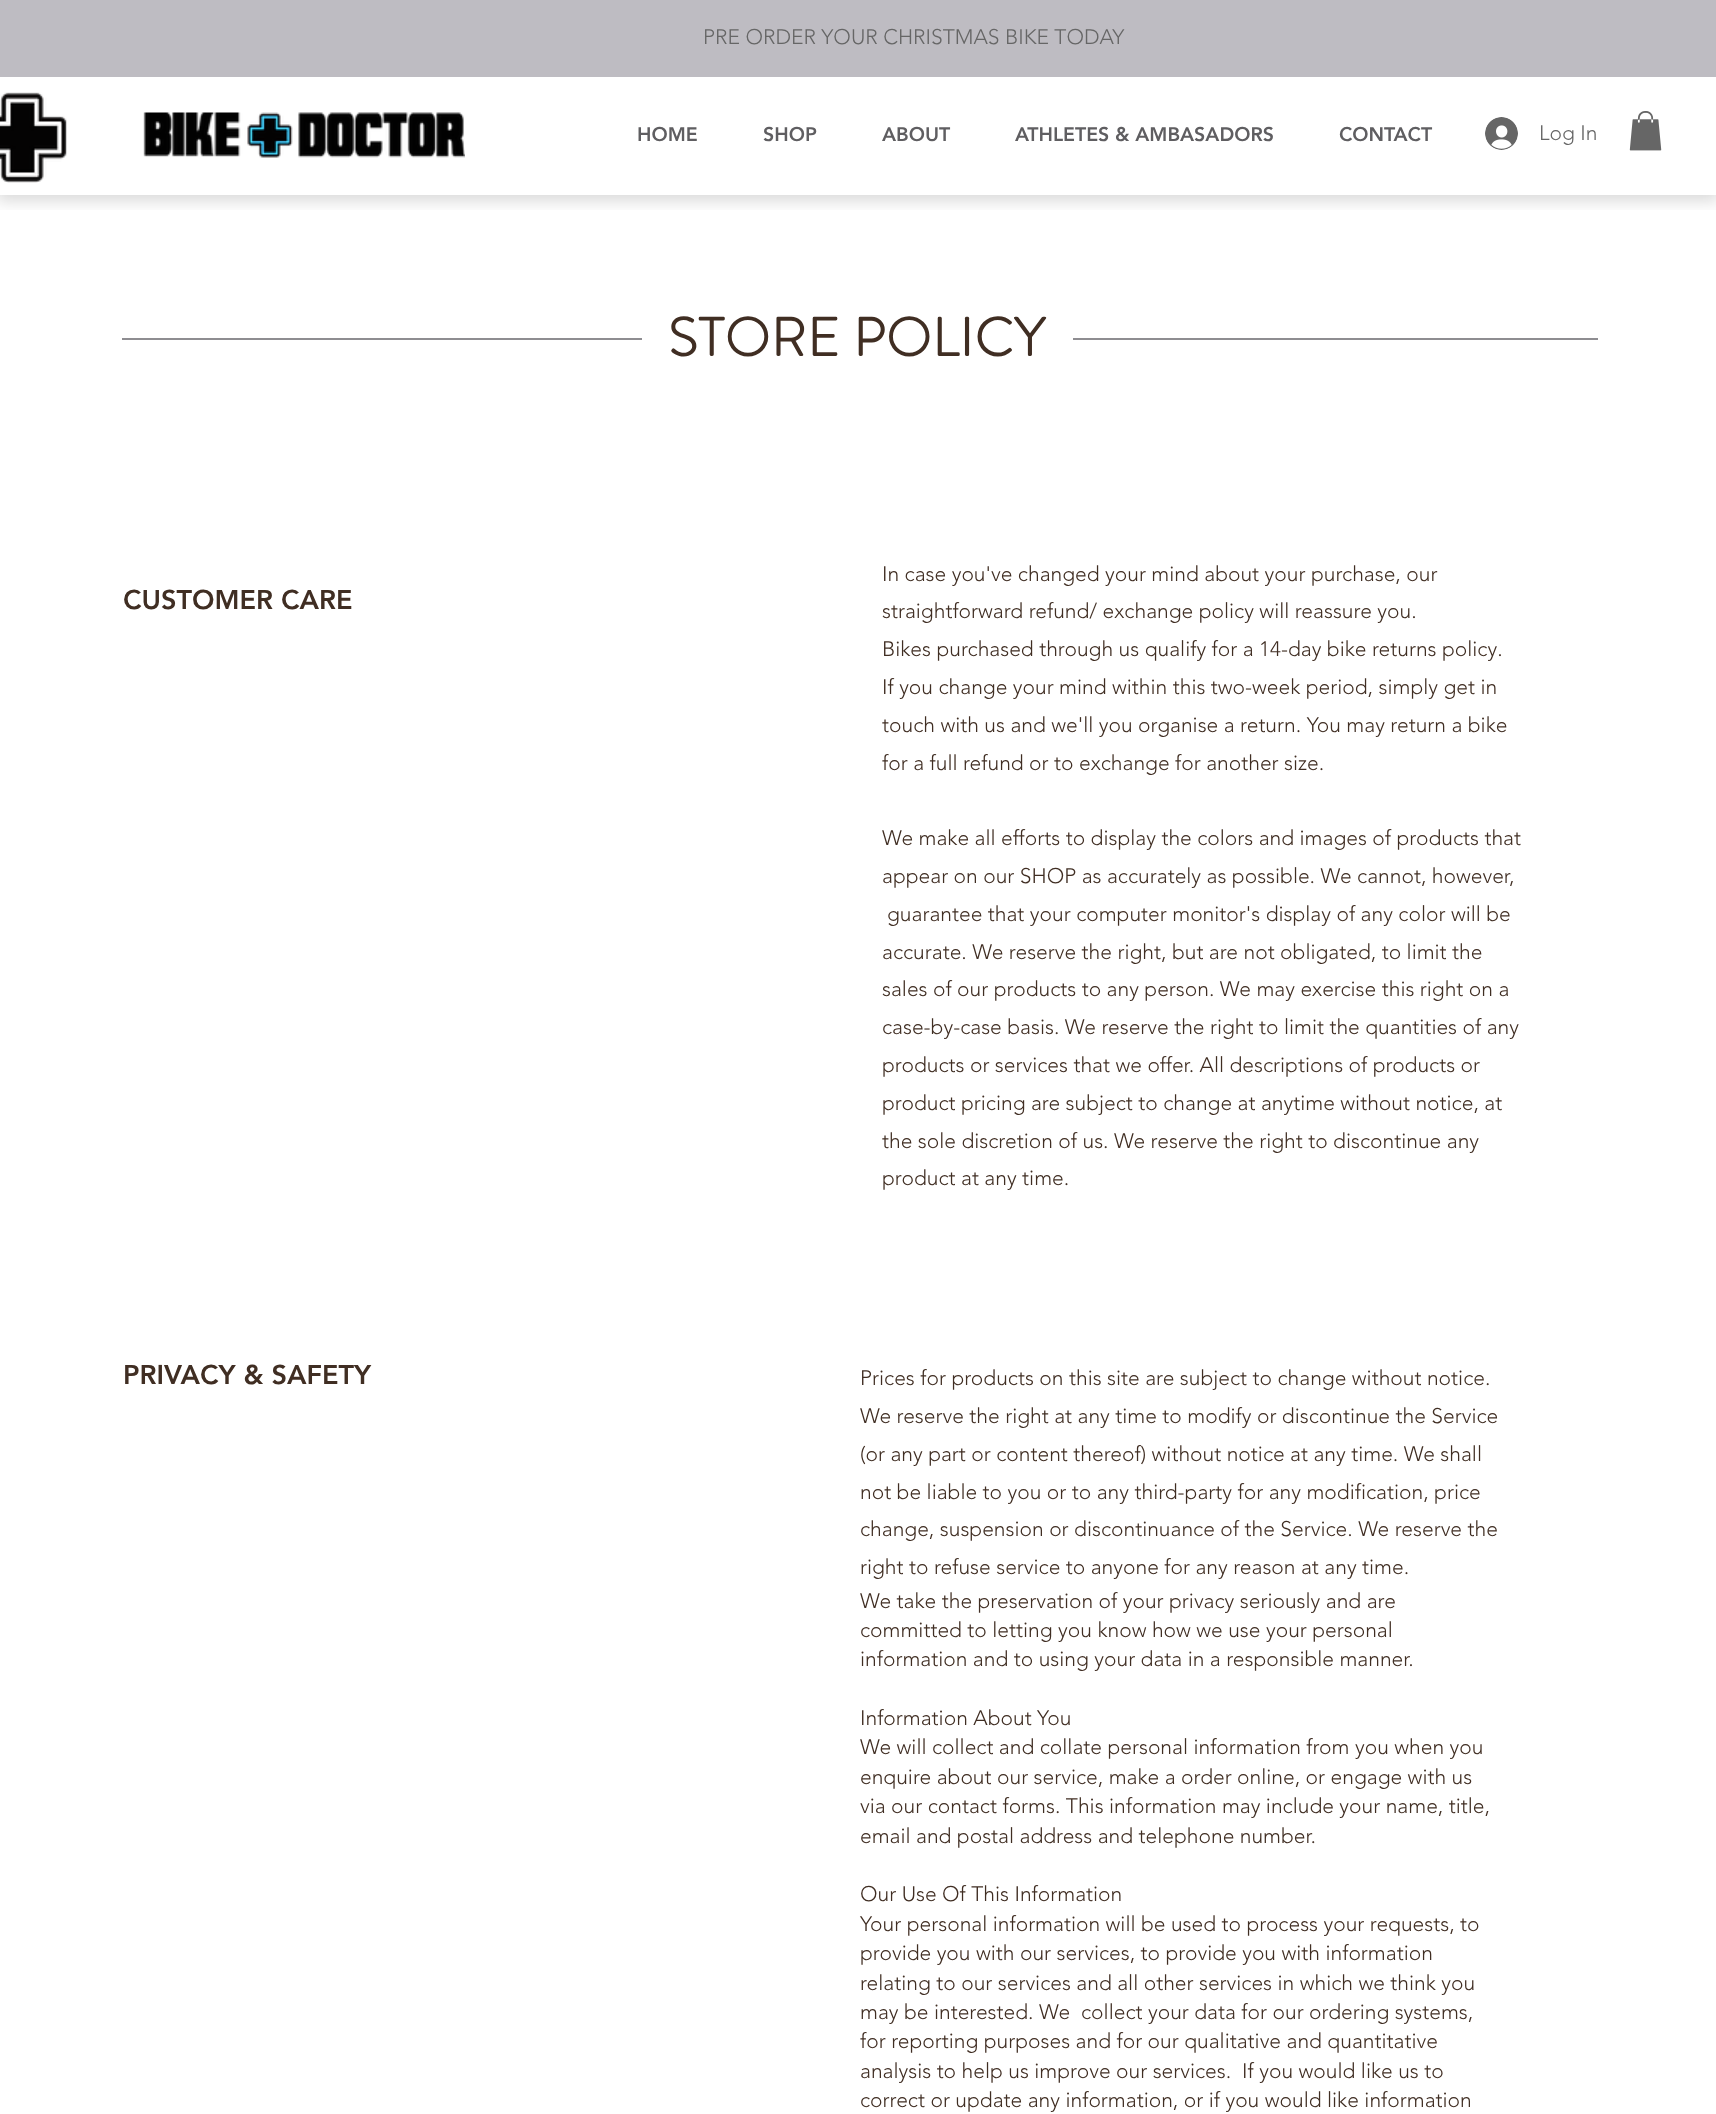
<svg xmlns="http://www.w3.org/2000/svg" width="1716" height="2114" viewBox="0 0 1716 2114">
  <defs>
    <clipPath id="clip1"><path d="M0 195h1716v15H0z"/></clipPath>
  </defs>
  <rect width="100%" height="100%" fill="#fff"/>
  <g clip-path="url(#clip1)">
    <path d="M-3 0h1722v201H-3z" fill="#00000026" filter="blur(8px)"/>
  </g>
  <path d="M0 0h1716v77H0z" fill="#bebcc2"/>
  <image x="0" y="92" width="67" height="91" href="img/1.png"/>
  <image x="143" y="112" width="322" height="46" href="img/2.png"/>
  <image x="1485" y="117" width="33" height="33" href="img/3.png"/>
  <image x="1629" y="111" width="33" height="40" href="img/4.png"/>
  <path d="M122 338h1476v2H122z" fill="#8e8d91"/>
  <path d="M642 338h431v2H642z" fill="#fff"/>
  <text x="703" y="44" font-family="'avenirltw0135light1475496'" font-size="21" font-weight="300" fill="#666">PRE ORDER YOUR CHRISTMAS BIKE TODAY</text>
  <g font-family="'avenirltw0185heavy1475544'" font-size="19.5" font-weight="900" fill="#5f5e61">
    <text x="637" y="141">HOME</text>
    <text x="763" y="141">SHOP</text>
    <text x="882" y="141">ABOUT</text>
    <text x="1015" y="141">ATHLETES &amp; AMBASADORS</text>
    <text x="1339" y="141">CONTACT</text>
  </g>
  <text x="1539" y="140" font-family="'avenirltw0135light1475496'" font-size="21" font-weight="300" fill="#666">Log In</text>
  <text x="668" y="356" font-family="'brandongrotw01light'" font-size="54" font-weight="bold" letter-spacing="1" fill="#402e23">STORE POLICY</text>
  <text x="123" y="609" font-family="'avenirltw0185heavy1475544'" font-size="27" font-weight="900" fill="#402e23">CUSTOMER CARE</text>
  <g font-family="'avenirltw0135light1475496'" font-size="21" font-weight="300" fill="#402e23">
    <text x="882" y="581">In case you've changed your mind about your purchase, our</text>
    <text x="882" y="618">straightforward refund/ exchange policy will reassure you.</text>
    <text x="882" y="656">Bikes purchased through us qualify for a 14-day bike returns policy.</text>
    <text x="882" y="694">If you change your mind within this two-week period, simply get in</text>
    <text x="882" y="732">touch with us and we'll you organise a return. You may return a bike</text>
    <text x="882" y="770">for a full refund or to exchange for another size.</text>
    <text x="882" y="845">We make all efforts to display the colors and images of products that</text>
    <text x="882" y="883">appear on our SHOP as accurately as possible. We cannot, however,</text>
    <text x="887" y="921">guarantee that your computer monitor's display of any color will be</text>
    <text x="882" y="959">accurate. We reserve the right, but are not obligated, to limit the</text>
    <text x="882" y="996">sales of our products to any person. We may exercise this right on a</text>
    <text x="882" y="1034">case-by-case basis. We reserve the right to limit the quantities of any</text>
    <text x="882" y="1072">products or services that we offer. All descriptions of products or</text>
    <text x="882" y="1110">product pricing are subject to change at anytime without notice, at</text>
    <text x="882" y="1148">the sole discretion of us. We reserve the right to discontinue any</text>
    <text x="882" y="1185">product at any time.</text>
  </g>
  <text x="123" y="1384" font-family="'avenirltw0185heavy1475544'" font-size="27" font-weight="900" fill="#402e23">PRIVACY &amp; SAFETY</text>
  <g font-family="'avenirltw0135light1475496'" font-size="21" font-weight="300" fill="#402e23">
    <text x="860" y="1385">Prices for products on this site are subject to change without notice.</text>
    <text x="860" y="1423">We reserve the right at any time to modify or discontinue the Service</text>
    <text x="860" y="1461">(or any part or content thereof) without notice at any time. We shall</text>
    <text x="860" y="1499">not be liable to you or to any third-party for any modification, price</text>
    <text x="860" y="1536">change, suspension or discontinuance of the Service. We reserve the</text>
    <text x="860" y="1574">right to refuse service to anyone for any reason at any time.</text>
    <text x="860" y="1608">We take the preservation of your privacy seriously and are</text>
    <text x="860" y="1637">committed to letting you know how we use your personal</text>
    <text x="860" y="1666">information and to using your data in a responsible manner.</text>
    <text x="860" y="1725">Information About You</text>
    <text x="860" y="1754">We will collect and collate personal information from you when you</text>
    <text x="860" y="1784">enquire about our service, make a order online, or engage with us</text>
    <text x="860" y="1813">via our contact forms. This information may include your name, title,</text>
    <text x="860" y="1843">email and postal address and telephone number.</text>
    <text x="860" y="1901">Our Use Of This Information</text>
    <text x="860" y="1931">Your personal information will be used to process your requests, to</text>
    <text x="860" y="1960">provide you with our services, to provide you with information</text>
    <text x="860" y="1990">relating to our services and all other services in which we think you</text>
    <text x="860" y="2019" xml:space="preserve">may be interested. We  collect your data for our ordering systems,</text>
    <text x="860" y="2048">for reporting purposes and for our qualitative and quantitative</text>
    <text x="860" y="2078" xml:space="preserve">analysis to help us improve our services.  If you would like us to</text>
    <text x="860" y="2107">correct or update any information, or if you would like information</text>
  </g>
</svg>
